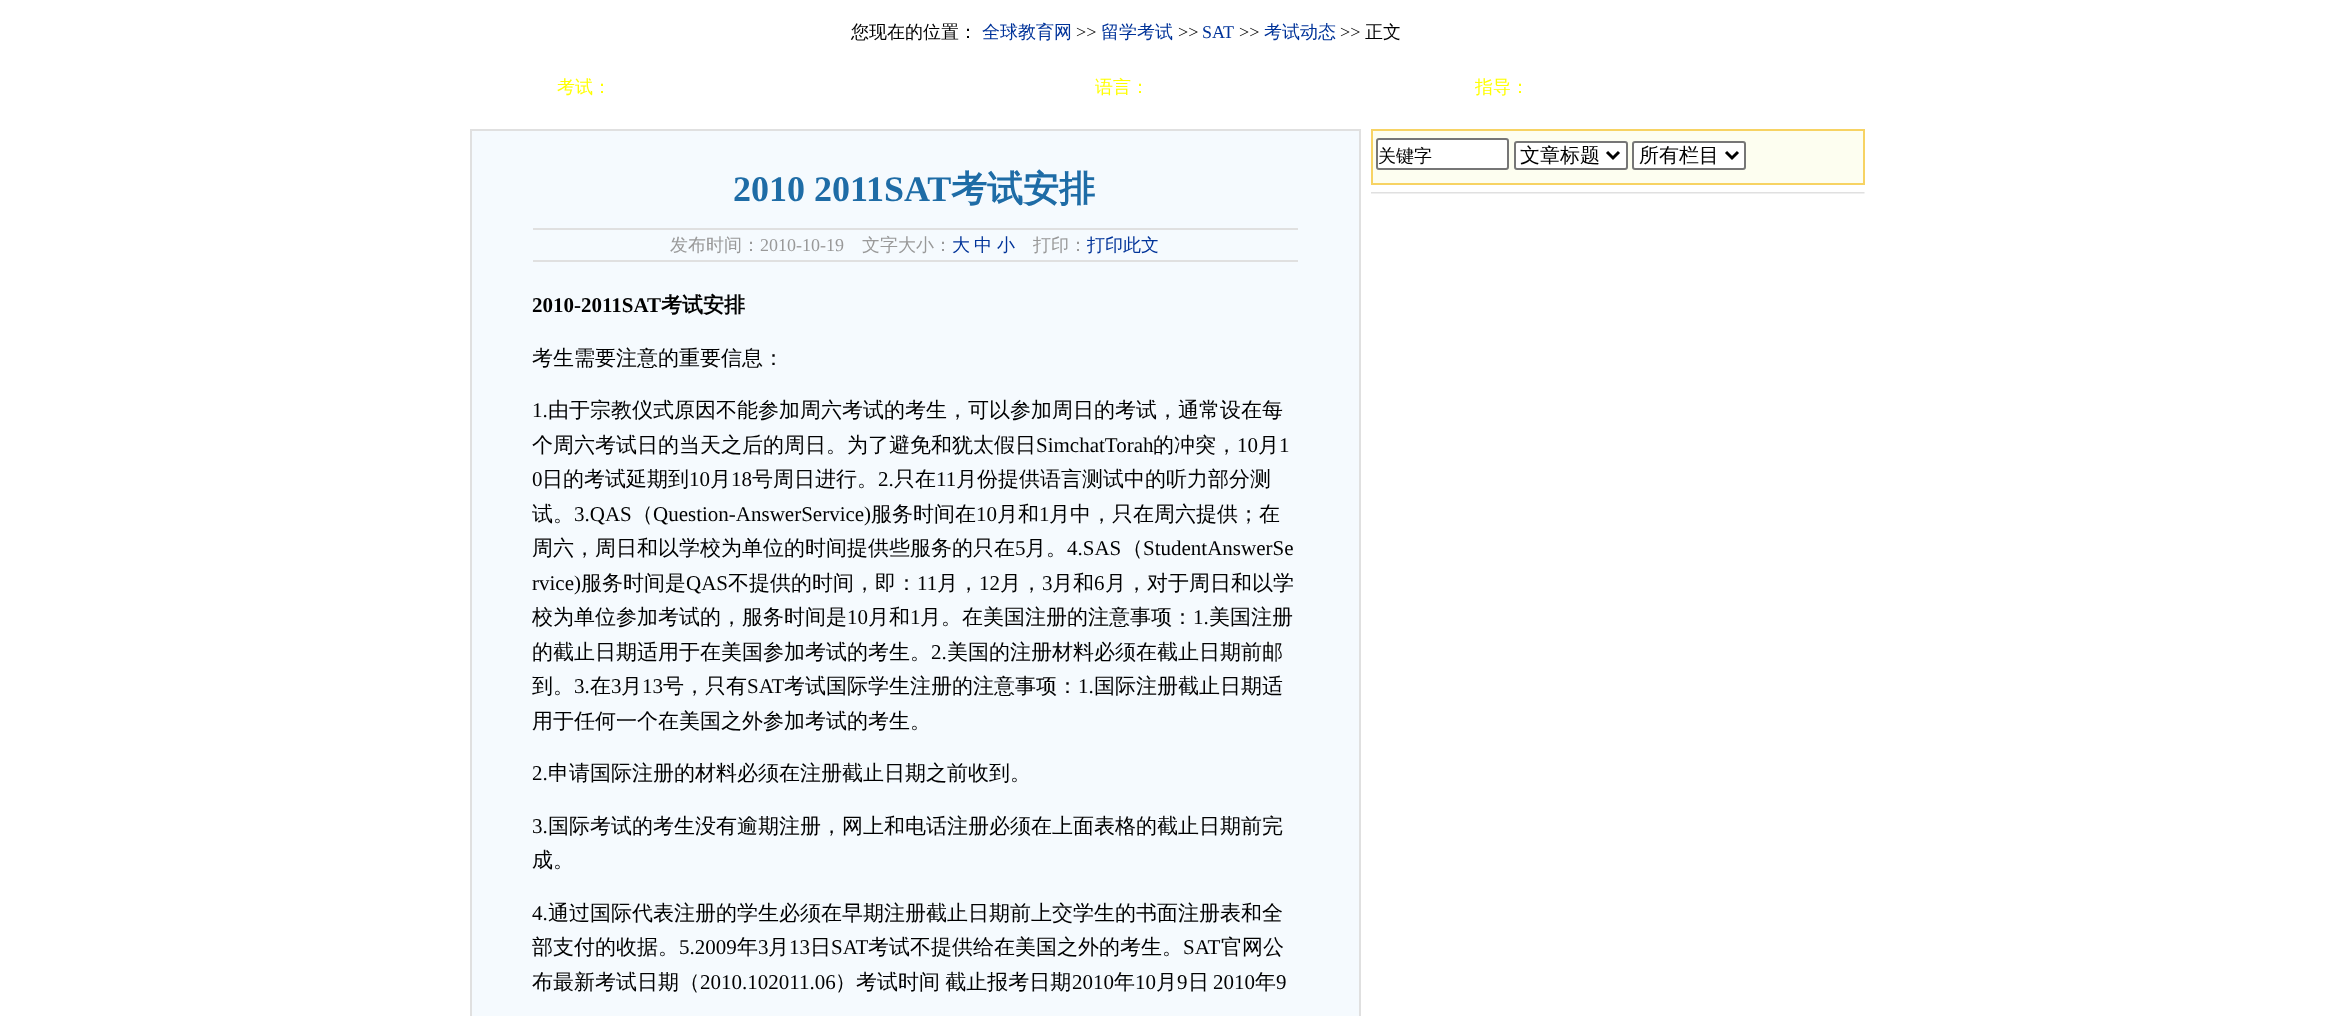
<svg xmlns="http://www.w3.org/2000/svg" width="2332" height="1016" viewBox="0 0 2332 1016">
  <rect width="100%" height="100%" fill="#fff"/>
  <path d="M1372 130h492v54H1372z" fill="#fdfef0" stroke="#f7d363" stroke-width="2"/>
  <rect x="1377" y="139" width="131" height="30" rx="2" fill="#fff" stroke="#767676" stroke-width="2"/>
  <rect x="1515" y="142" width="112" height="27" rx="2" fill="#fff" stroke="#767676" stroke-width="2"/>
  <path d="M1607 152L1613 158L1619 152" fill="none" stroke="#000" stroke-width="3"/>
  <rect x="1633" y="142" width="112" height="27" rx="2" fill="#fff" stroke="#767676" stroke-width="2"/>
  <path d="M1726 152L1732 158L1738 152" fill="none" stroke="#000" stroke-width="3"/>
  <image x="1371" y="192" width="494" height="2" href="img/1.png"/>
  <path d="M471 130h889v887H471z" fill="#f5fafe" stroke="#e0e0e0" stroke-width="2"/>
  <path d="M533 228h765v2H533z" fill="#e0e0e0"/>
  <path d="M533 260h765v2H533z" fill="#e0e0e0"/>
  <text x="851" y="38" font-family="WenQuanYi Zen Hei" font-size="18" font-weight="500" fill="#000">您现在的位置：</text>
  <text x="982" y="38" font-family="WenQuanYi Zen Hei" font-size="18" font-weight="500" fill="#039">全球教育网</text>
  <text x="1076" y="38" font-family="Liberation Serif" font-size="18" fill="#000">&gt;&gt;</text>
  <text x="1101" y="38" font-family="WenQuanYi Zen Hei" font-size="18" font-weight="500" fill="#039">留学考试</text>
  <text x="1178" y="38" font-family="Liberation Serif" font-size="18" fill="#000">&gt;&gt;</text>
  <text x="1202" y="38" font-family="Liberation Serif" font-size="18" fill="#039">SAT</text>
  <text x="1239" y="38" font-family="Liberation Serif" font-size="18" fill="#000">&gt;&gt;</text>
  <text x="1264" y="38" font-family="WenQuanYi Zen Hei" font-size="18" font-weight="500" fill="#039">考试动态</text>
  <text x="1340" y="38" font-family="Liberation Serif" font-size="18" fill="#000">&gt;&gt;</text>
  <text x="1365" y="38" font-family="WenQuanYi Zen Hei" font-size="18" font-weight="500" fill="#000">正文</text>
  <g font-family="WenQuanYi Zen Hei" font-size="18" font-weight="500" fill="#ff0">
    <text x="557" y="93">考试：</text>
    <text x="1095" y="93">语言：</text>
    <text x="1475" y="93">指导：</text>
  </g>
  <text x="1378" y="162" font-family="WenQuanYi Zen Hei" font-size="18" font-weight="500" fill="#000">关键字</text>
  <g font-family="WenQuanYi Zen Hei" font-size="20" font-weight="500" fill="#000">
    <text x="1520" y="162">文章标题</text>
    <text x="1639" y="162">所有栏目</text>
  </g>
  <text x="733" y="201" font-family="Liberation Serif" font-size="36" font-weight="bold" fill="#1e6ca6">2010 2011SAT</text>
  <text x="951" y="201" font-family="WenQuanYi Zen Hei" font-size="36" font-weight="bold" fill="#1e6ca6">考试安排</text>
  <text x="670" y="251" font-family="WenQuanYi Zen Hei" font-size="18" font-weight="500" fill="#999">发布时间：</text>
  <text x="760" y="251" font-family="Liberation Serif" font-size="18" fill="#999">2010-10-19</text>
  <text x="862" y="251" font-family="WenQuanYi Zen Hei" font-size="18" font-weight="500" fill="#999">文字大小：</text>
  <g font-family="WenQuanYi Zen Hei" font-size="18" font-weight="500" fill="#039">
    <text x="952" y="251">大</text>
    <text x="974" y="251">中</text>
    <text x="997" y="251">小</text>
  </g>
  <text x="1033" y="251" font-family="WenQuanYi Zen Hei" font-size="18" font-weight="500" fill="#999">打印：</text>
  <text x="1087" y="251" font-family="WenQuanYi Zen Hei" font-size="18" font-weight="500" fill="#039">打印此文</text>
  <text x="532" y="312" font-family="Liberation Serif" font-size="21" font-weight="bold" fill="#000">2010-2011SAT</text>
  <text x="661" y="312" font-family="WenQuanYi Zen Hei" font-size="21" font-weight="bold" fill="#000">考试安排</text>
  <text x="532" y="365" font-family="WenQuanYi Zen Hei" font-size="21" font-weight="500" fill="#000">考生需要注意的重要信息：</text>
  <text x="532" y="417" font-family="Liberation Serif" font-size="21" fill="#000">1.</text>
  <g font-family="WenQuanYi Zen Hei" font-size="21" font-weight="500" fill="#000">
    <text x="548" y="417">由于宗教仪式原因不能参加周六考试的考生，可以参加周日的考试，通常设在每</text>
    <text x="532" y="452">个周六考试日的当天之后的周日。为了避免和犹太假日</text>
  </g>
  <text x="1036" y="452" font-family="Liberation Serif" font-size="21" fill="#000">SimchatTorah</text>
  <text x="1153" y="452" font-family="WenQuanYi Zen Hei" font-size="21" font-weight="500" fill="#000">的冲突，</text>
  <text x="1237" y="452" font-family="Liberation Serif" font-size="21" fill="#000">10</text>
  <text x="1258" y="452" font-family="WenQuanYi Zen Hei" font-size="21" font-weight="500" fill="#000">月</text>
  <g font-family="Liberation Serif" font-size="21" fill="#000">
    <text x="1279" y="452">1</text>
    <text x="532" y="486">0</text>
  </g>
  <text x="542" y="486" font-family="WenQuanYi Zen Hei" font-size="21" font-weight="500" fill="#000">日的考试延期到</text>
  <text x="689" y="486" font-family="Liberation Serif" font-size="21" fill="#000">10</text>
  <text x="710" y="486" font-family="WenQuanYi Zen Hei" font-size="21" font-weight="500" fill="#000">月</text>
  <text x="731" y="486" font-family="Liberation Serif" font-size="21" fill="#000">18</text>
  <text x="752" y="486" font-family="WenQuanYi Zen Hei" font-size="21" font-weight="500" fill="#000">号周日进行。</text>
  <text x="878" y="486" font-family="Liberation Serif" font-size="21" fill="#000">2.</text>
  <text x="894" y="486" font-family="WenQuanYi Zen Hei" font-size="21" font-weight="500" fill="#000">只在</text>
  <text x="936" y="486" font-family="Liberation Serif" font-size="21" fill="#000">11</text>
  <g font-family="WenQuanYi Zen Hei" font-size="21" font-weight="500" fill="#000">
    <text x="956" y="486">月份提供语言测试中的听力部分测</text>
    <text x="532" y="521">试。</text>
  </g>
  <text x="574" y="521" font-family="Liberation Serif" font-size="21" fill="#000">3.QAS</text>
  <text x="632" y="521" font-family="WenQuanYi Zen Hei" font-size="21" font-weight="500" fill="#000">（</text>
  <text x="653" y="521" font-family="Liberation Serif" font-size="21" fill="#000">Question-AnswerService)</text>
  <text x="871" y="521" font-family="WenQuanYi Zen Hei" font-size="21" font-weight="500" fill="#000">服务时间在</text>
  <text x="976" y="521" font-family="Liberation Serif" font-size="21" fill="#000">10</text>
  <text x="997" y="521" font-family="WenQuanYi Zen Hei" font-size="21" font-weight="500" fill="#000">月和</text>
  <text x="1039" y="521" font-family="Liberation Serif" font-size="21" fill="#000">1</text>
  <g font-family="WenQuanYi Zen Hei" font-size="21" font-weight="500" fill="#000">
    <text x="1049" y="521">月中，只在周六提供；在</text>
    <text x="532" y="555">周六，周日和以学校为单位的时间提供些服务的只在</text>
  </g>
  <text x="1015" y="555" font-family="Liberation Serif" font-size="21" fill="#000">5</text>
  <text x="1025" y="555" font-family="WenQuanYi Zen Hei" font-size="21" font-weight="500" fill="#000">月。</text>
  <text x="1067" y="555" font-family="Liberation Serif" font-size="21" fill="#000">4.SAS</text>
  <text x="1122" y="555" font-family="WenQuanYi Zen Hei" font-size="21" font-weight="500" fill="#000">（</text>
  <g font-family="Liberation Serif" font-size="21" fill="#000">
    <text x="1143" y="555">StudentAnswerSe</text>
    <text x="532" y="590">rvice)</text>
  </g>
  <text x="581" y="590" font-family="WenQuanYi Zen Hei" font-size="21" font-weight="500" fill="#000">服务时间是</text>
  <text x="686" y="590" font-family="Liberation Serif" font-size="21" fill="#000">QAS</text>
  <text x="728" y="590" font-family="WenQuanYi Zen Hei" font-size="21" font-weight="500" fill="#000">不提供的时间，即：</text>
  <text x="917" y="590" font-family="Liberation Serif" font-size="21" fill="#000">11</text>
  <text x="937" y="590" font-family="WenQuanYi Zen Hei" font-size="21" font-weight="500" fill="#000">月，</text>
  <text x="979" y="590" font-family="Liberation Serif" font-size="21" fill="#000">12</text>
  <text x="1000" y="590" font-family="WenQuanYi Zen Hei" font-size="21" font-weight="500" fill="#000">月，</text>
  <text x="1042" y="590" font-family="Liberation Serif" font-size="21" fill="#000">3</text>
  <text x="1052" y="590" font-family="WenQuanYi Zen Hei" font-size="21" font-weight="500" fill="#000">月和</text>
  <text x="1094" y="590" font-family="Liberation Serif" font-size="21" fill="#000">6</text>
  <g font-family="WenQuanYi Zen Hei" font-size="21" font-weight="500" fill="#000">
    <text x="1105" y="590">月，对于周日和以学</text>
    <text x="532" y="624">校为单位参加考试的，服务时间是</text>
  </g>
  <text x="847" y="624" font-family="Liberation Serif" font-size="21" fill="#000">10</text>
  <text x="868" y="624" font-family="WenQuanYi Zen Hei" font-size="21" font-weight="500" fill="#000">月和</text>
  <text x="910" y="624" font-family="Liberation Serif" font-size="21" fill="#000">1</text>
  <text x="920" y="624" font-family="WenQuanYi Zen Hei" font-size="21" font-weight="500" fill="#000">月。在美国注册的注意事项：</text>
  <text x="1193" y="624" font-family="Liberation Serif" font-size="21" fill="#000">1.</text>
  <g font-family="WenQuanYi Zen Hei" font-size="21" font-weight="500" fill="#000">
    <text x="1209" y="624">美国注册</text>
    <text x="532" y="659">的截止日期适用于在美国参加考试的考生。</text>
  </g>
  <text x="931" y="659" font-family="Liberation Serif" font-size="21" fill="#000">2.</text>
  <g font-family="WenQuanYi Zen Hei" font-size="21" font-weight="500" fill="#000">
    <text x="947" y="659">美国的注册材料必须在截止日期前邮</text>
    <text x="532" y="693">到。</text>
  </g>
  <text x="574" y="693" font-family="Liberation Serif" font-size="21" fill="#000">3.</text>
  <text x="590" y="693" font-family="WenQuanYi Zen Hei" font-size="21" font-weight="500" fill="#000">在</text>
  <text x="611" y="693" font-family="Liberation Serif" font-size="21" fill="#000">3</text>
  <text x="621" y="693" font-family="WenQuanYi Zen Hei" font-size="21" font-weight="500" fill="#000">月</text>
  <text x="642" y="693" font-family="Liberation Serif" font-size="21" fill="#000">13</text>
  <text x="663" y="693" font-family="WenQuanYi Zen Hei" font-size="21" font-weight="500" fill="#000">号，只有</text>
  <text x="747" y="693" font-family="Liberation Serif" font-size="21" fill="#000">SAT</text>
  <text x="784" y="693" font-family="WenQuanYi Zen Hei" font-size="21" font-weight="500" fill="#000">考试国际学生注册的注意事项：</text>
  <text x="1078" y="693" font-family="Liberation Serif" font-size="21" fill="#000">1.</text>
  <g font-family="WenQuanYi Zen Hei" font-size="21" font-weight="500" fill="#000">
    <text x="1094" y="693">国际注册截止日期适</text>
    <text x="532" y="728">用于任何一个在美国之外参加考试的考生。</text>
  </g>
  <text x="532" y="780" font-family="Liberation Serif" font-size="21" fill="#000">2.</text>
  <text x="548" y="780" font-family="WenQuanYi Zen Hei" font-size="21" font-weight="500" fill="#000">申请国际注册的材料必须在注册截止日期之前收到。</text>
  <text x="532" y="833" font-family="Liberation Serif" font-size="21" fill="#000">3.</text>
  <g font-family="WenQuanYi Zen Hei" font-size="21" font-weight="500" fill="#000">
    <text x="548" y="833">国际考试的考生没有逾期注册，网上和电话注册必须在上面表格的截止日期前完</text>
    <text x="532" y="867">成。</text>
  </g>
  <text x="532" y="920" font-family="Liberation Serif" font-size="21" fill="#000">4.</text>
  <g font-family="WenQuanYi Zen Hei" font-size="21" font-weight="500" fill="#000">
    <text x="548" y="920">通过国际代表注册的学生必须在早期注册截止日期前上交学生的书面注册表和全</text>
    <text x="532" y="954">部支付的收据。</text>
  </g>
  <text x="679" y="954" font-family="Liberation Serif" font-size="21" fill="#000">5.2009</text>
  <text x="737" y="954" font-family="WenQuanYi Zen Hei" font-size="21" font-weight="500" fill="#000">年</text>
  <text x="758" y="954" font-family="Liberation Serif" font-size="21" fill="#000">3</text>
  <text x="768" y="954" font-family="WenQuanYi Zen Hei" font-size="21" font-weight="500" fill="#000">月</text>
  <text x="789" y="954" font-family="Liberation Serif" font-size="21" fill="#000">13</text>
  <text x="810" y="954" font-family="WenQuanYi Zen Hei" font-size="21" font-weight="500" fill="#000">日</text>
  <text x="831" y="954" font-family="Liberation Serif" font-size="21" fill="#000">SAT</text>
  <text x="868" y="954" font-family="WenQuanYi Zen Hei" font-size="21" font-weight="500" fill="#000">考试不提供给在美国之外的考生。</text>
  <text x="1183" y="954" font-family="Liberation Serif" font-size="21" fill="#000">SAT</text>
  <g font-family="WenQuanYi Zen Hei" font-size="21" font-weight="500" fill="#000">
    <text x="1221" y="954">官网公</text>
    <text x="532" y="989">布最新考试日期（</text>
  </g>
  <text x="700" y="989" font-family="Liberation Serif" font-size="21" fill="#000">2010.102011.06</text>
  <text x="835" y="989" word-spacing="-1" font-family="WenQuanYi Zen Hei" font-size="21" font-weight="500" fill="#000">）考试时间 截止报考日期</text>
  <text x="1072" y="989" font-family="Liberation Serif" font-size="21" fill="#000">2010</text>
  <text x="1114" y="989" font-family="WenQuanYi Zen Hei" font-size="21" font-weight="500" fill="#000">年</text>
  <text x="1135" y="989" font-family="Liberation Serif" font-size="21" fill="#000">10</text>
  <text x="1156" y="989" font-family="WenQuanYi Zen Hei" font-size="21" font-weight="500" fill="#000">月</text>
  <text x="1177" y="989" font-family="Liberation Serif" font-size="21" fill="#000">9</text>
  <text x="1188" y="989" font-family="WenQuanYi Zen Hei" font-size="21" font-weight="500" fill="#000">日</text>
  <text x="1213" y="989" font-family="Liberation Serif" font-size="21" fill="#000">2010</text>
  <text x="1255" y="989" font-family="WenQuanYi Zen Hei" font-size="21" font-weight="500" fill="#000">年</text>
  <text x="1276" y="989" font-family="Liberation Serif" font-size="21" fill="#000">9</text>
</svg>
